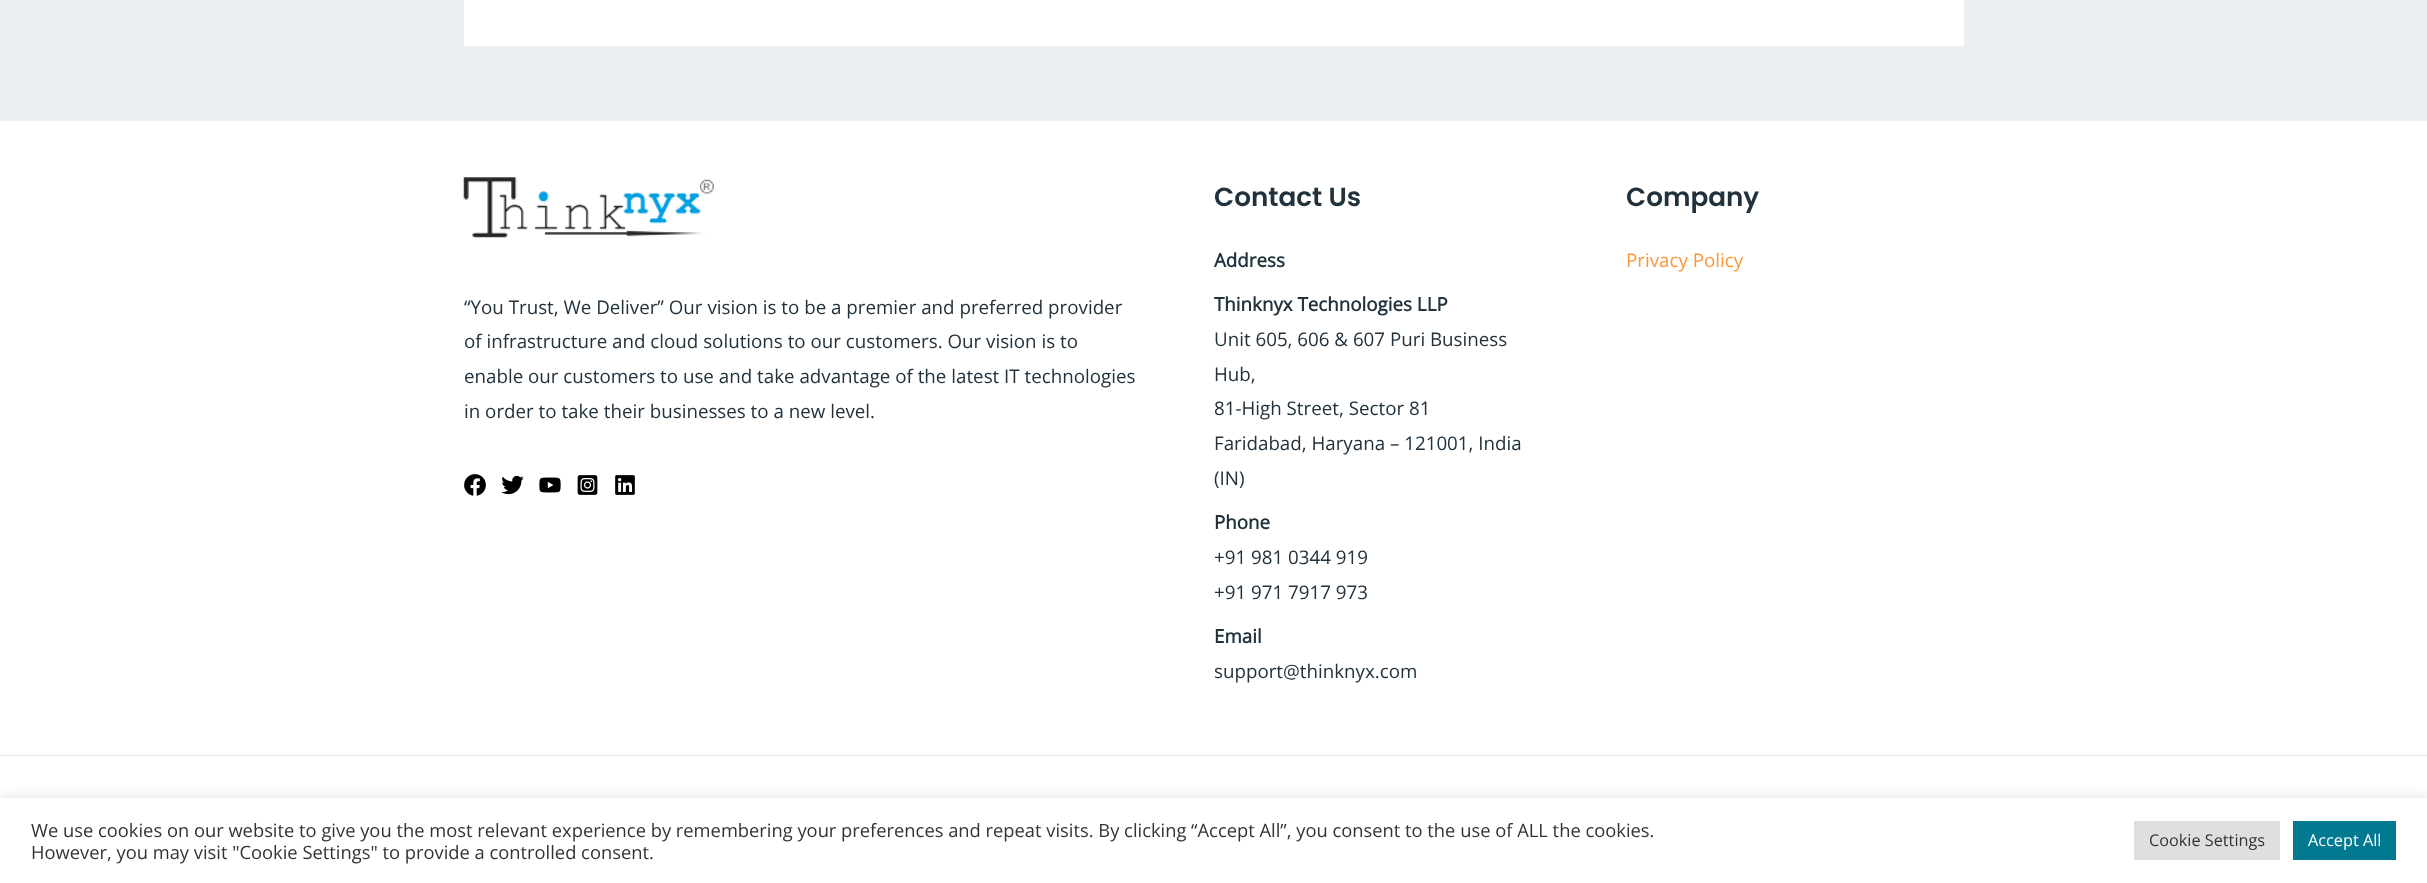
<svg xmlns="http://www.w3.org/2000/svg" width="2427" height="883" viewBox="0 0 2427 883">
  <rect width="100%" height="100%" fill="#ecf0f2"/>
  <path d="M464 0h1500v46H464z" fill="#fff"/>
  <path d="M0 121h2427v677H0z" fill="#fff"/>
  <image x="463" y="177" width="251" height="61" href="img/1.png"/>
  <image x="464" y="474" width="22" height="22" href="img/2.png"/>
  <image x="501" y="475" width="23" height="20" href="img/3.png"/>
  <image x="539" y="477" width="22" height="16" href="img/4.png"/>
  <image x="577" y="475" width="21" height="20" href="img/5.png"/>
  <image x="615" y="475" width="20" height="20" href="img/6.png"/>
  <path d="M0 755h2427v1H0z" fill="#e7e7e7"/>
  <path d="M0 796h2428v87H0z" fill="#acabab4d" filter="blur(6px)"/>
  <path d="M0 798h2427v85H0z" fill="#fff"/>
  <path d="M2134 821h146v39H2134z" fill="#dedfe0"/>
  <path d="M2293 821h103v39H2293z" fill="#007991"/>
  <text x="1214" y="206" font-family="Poppins" font-size="26.25" font-weight="600" fill="#22323d">Contact Us</text>
  <g font-family="Open Sans" font-size="18.75" font-weight="bold" fill="#22323d">
    <text x="1214" y="267">Address</text>
    <text x="1214" y="311">Thinknyx Technologies LLP</text>
  </g>
  <g font-family="Open Sans" font-size="18.75" fill="#22323d">
    <text x="1214" y="346">Unit 605, 606 &amp; 607 Puri Business</text>
    <text x="1214" y="381">Hub,</text>
    <text x="1214" y="415">81-High Street, Sector 81</text>
    <text x="1214" y="450">Faridabad, Haryana – 121001, India</text>
    <text x="1214" y="485">(IN)</text>
  </g>
  <text x="1214" y="529" font-family="Open Sans" font-size="18.75" font-weight="bold" fill="#22323d">Phone</text>
  <g font-family="Open Sans" font-size="18.75" fill="#22323d">
    <text x="1214" y="564">+91 981 0344 919</text>
    <text x="1214" y="599">+91 971 7917 973</text>
  </g>
  <text x="1214" y="643" font-family="Open Sans" font-size="18.75" font-weight="bold" fill="#22323d">Email</text>
  <text x="1214" y="678" font-family="Open Sans" font-size="18.75" fill="#22323d">support@thinknyx.com</text>
  <text x="1626" y="206" font-family="Poppins" font-size="26.25" font-weight="600" fill="#22323d">Company</text>
  <text x="1626" y="267" font-family="Open Sans" font-size="18.75" fill="#ff9635">Privacy Policy</text>
  <g font-family="Open Sans" font-size="18.75" fill="#22323d">
    <text x="464" y="314">“You Trust, We Deliver” Our vision is to be a premier and preferred provider</text>
    <text x="464" y="348">of infrastructure and cloud solutions to our customers. Our vision is to</text>
    <text x="464" y="383">enable our customers to use and take advantage of the latest IT technologies</text>
    <text x="464" y="418">in order to take their businesses to a new level.</text>
  </g>
  <g font-family="Open Sans" font-size="18.33" fill="#333">
    <text x="31" y="837">We use cookies on our website to give you the most relevant experience by remembering your preferences and repeat visits. By clicking “Accept All”, you consent to the use of ALL the cookies.</text>
    <text x="31" y="859">However, you may visit "Cookie Settings" to provide a controlled consent.</text>
  </g>
  <text x="2149" y="846" font-family="Open Sans" font-size="16.25" fill="#333">Cookie Settings</text>
  <text x="2308" y="846" font-family="Open Sans" font-size="16.25" fill="#fff">Accept All</text>
</svg>
